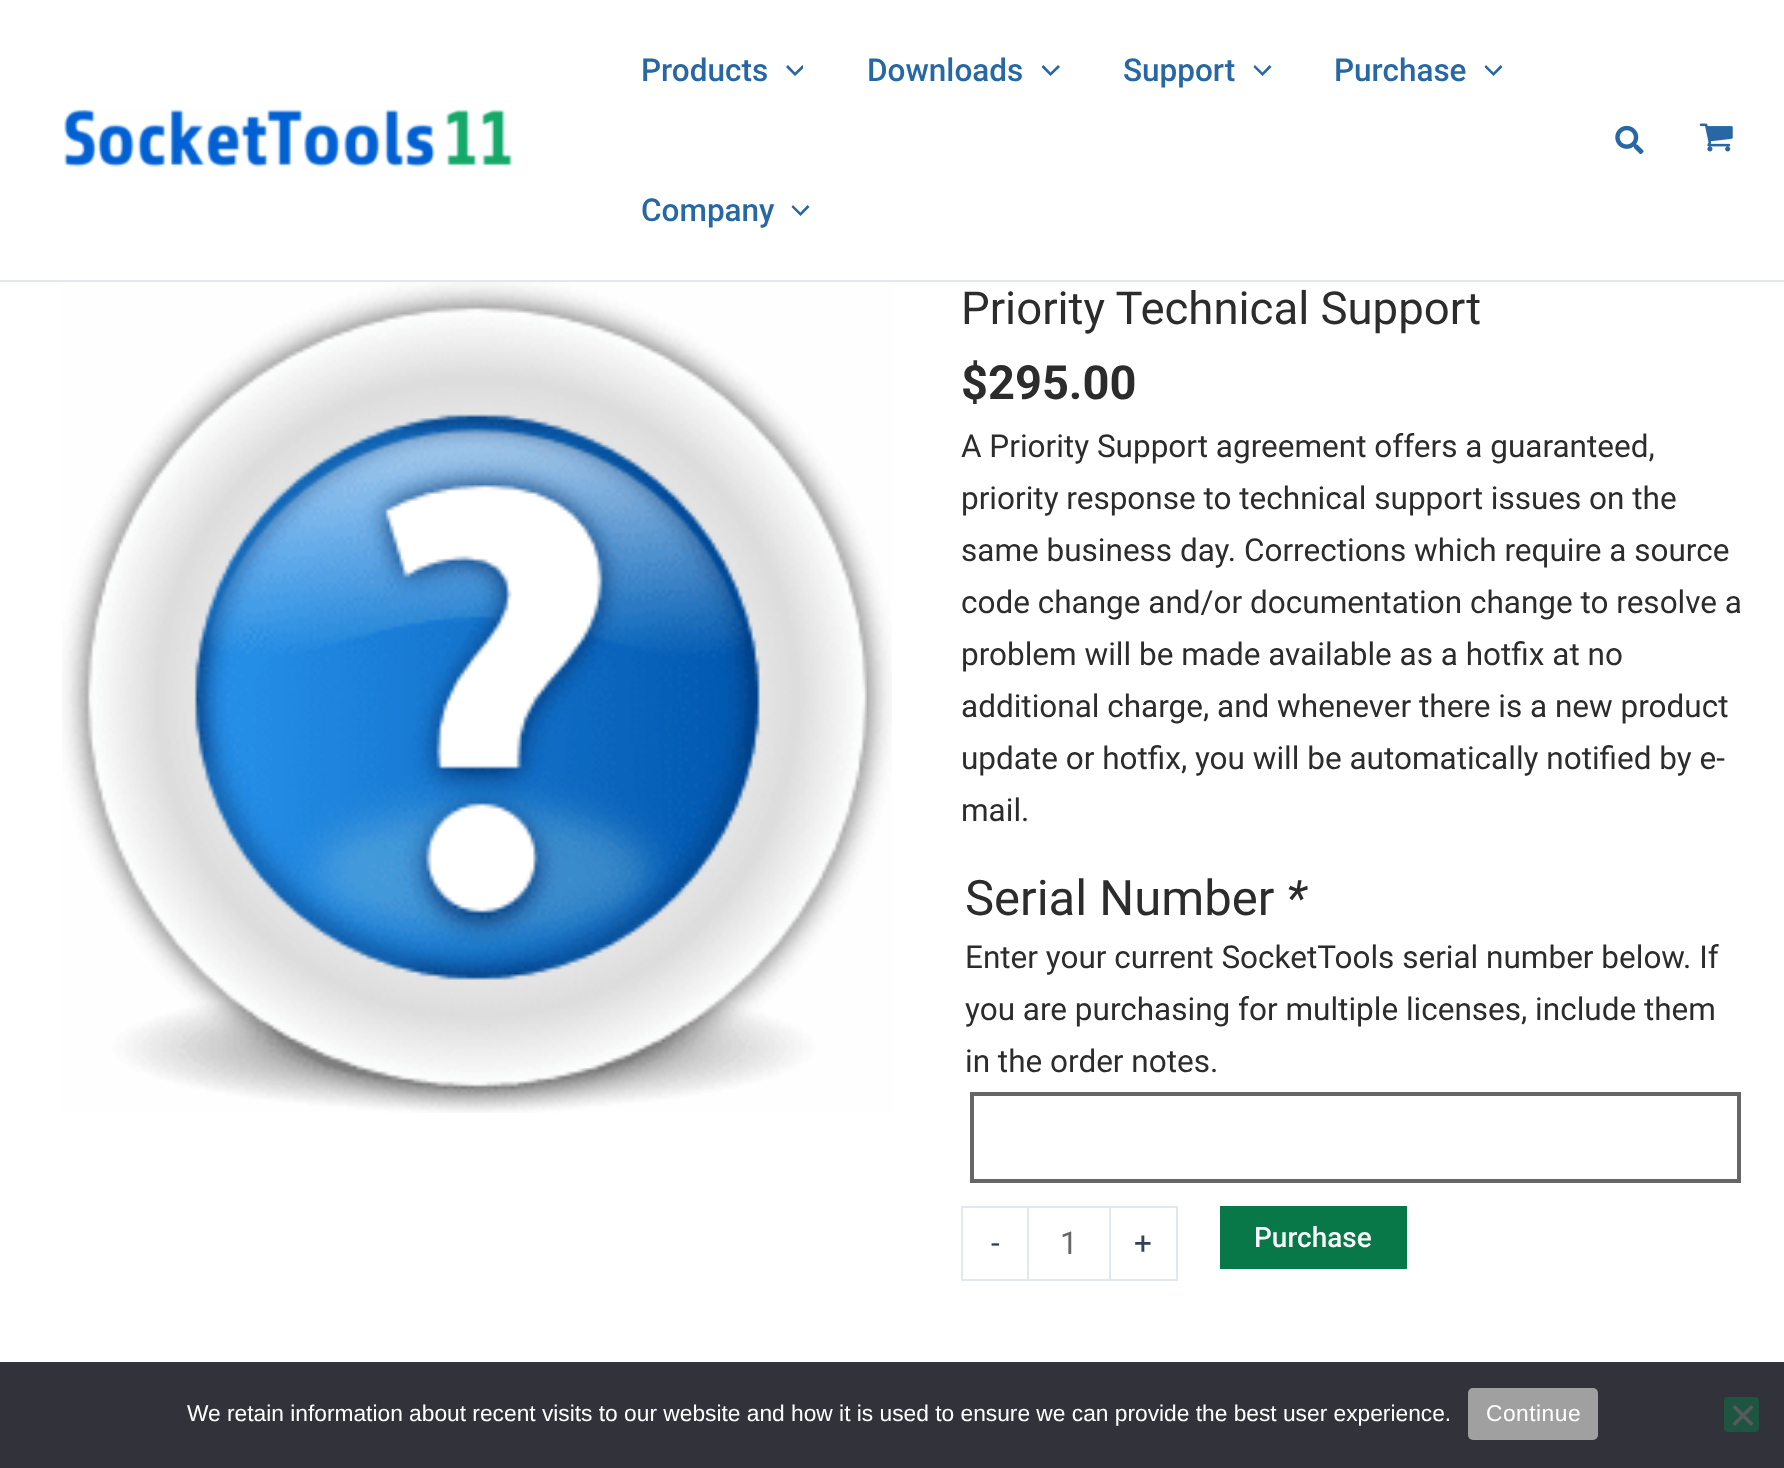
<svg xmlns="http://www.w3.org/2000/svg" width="1784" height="1468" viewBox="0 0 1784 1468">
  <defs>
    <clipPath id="clip1"><path d="M786 61h17v20H786z"/></clipPath>
  </defs>
  <rect width="100%" height="100%" fill="#fff"/>
  <path d="M0 280h1784v2H0z" fill="#e2e8f0"/>
  <image x="64" y="109" width="449" height="58" href="img/1.png"/>
  <g clip-path="url(#clip1)">
    <path d="M786 67L795 76L804.5 67L802.5 65L795 72.5L788 65Z" fill="#2767a3"/>
  </g>
  <path d="M1041.5 67L1050.5 76L1060 67L1058 65L1050.5 72.5L1043.5 65Z" fill="#2767a3"/>
  <path d="M1253.5 67L1262.5 76L1271.5 67L1269.5 65L1262.5 72.5L1255 65Z" fill="#2767a3"/>
  <path d="M1484.5 67L1493.5 76L1502.5 67L1500.5 65L1493.5 72.5L1486 65Z" fill="#2767a3"/>
  <path d="M791.5 207L800.5 216L809.5 207L807.5 205L800.5 212.5L793 205Z" fill="#2767a3"/>
  <image x="1615" y="125" width="29" height="30" href="img/2.png"/>
  <image x="1699" y="123" width="34" height="29" href="img/3.png"/>
  <image x="62" y="282" width="830" height="831" href="img/4.png"/>
  <path d="M972 1094h767v87H972z" fill="none" stroke="#666" stroke-width="4"/>
  <path d="M961 1206h66v2H961z" fill="#e2e8f0"/>
  <path d="M961 1279h66v2H961z" fill="#e2e8f0"/>
  <path d="M961 1206h2v75H961z" fill="#e2e8f0"/>
  <path d="M1028 1207h82v73H1028z" fill="none" stroke="#e2e8f0" stroke-width="2"/>
  <path d="M1111 1206h67v2H1111z" fill="#e2e8f0"/>
  <path d="M1176 1206h2v75H1176z" fill="#e2e8f0"/>
  <path d="M1111 1279h67v2H1111z" fill="#e2e8f0"/>
  <path d="M1220 1206h187v63H1220z" fill="#087848"/>
  <path d="M0 1362h1784v106H0z" fill="#32323a"/>
  <rect x="1468" y="1388" width="130" height="52" rx="5" fill="#a0a0a0"/>
  <rect x="1724" y="1397" width="35" height="35" rx="4" fill="#1d5541"/>
  <path d="M1751 1405L1753.5 1407.5L1735 1426L1732.5 1423.5Z" fill="#59595d"/>
  <path d="M1732.5 1407.5L1735 1405L1753.5 1423.5L1751 1426Z" fill="#59595d"/>
  <g font-family="Roboto" font-size="31.5" font-weight="500" fill="#2767a3">
    <text x="641" y="81">Products</text>
    <text x="867" y="81">Downloads</text>
    <text x="1123" y="81">Support</text>
    <text x="1334" y="81">Purchase</text>
    <text x="641" y="221">Company</text>
  </g>
  <text x="961" y="324" font-family="Roboto" font-size="45.5" fill="#2c2c2c">Priority Technical Support</text>
  <text x="961" y="399" font-family="Roboto" font-size="47" font-weight="bold" fill="#2c2c2c">$295.00</text>
  <g font-family="Roboto" font-size="31.5" fill="#2c2c2c">
    <text x="961" y="457">A Priority Support agreement offers a guaranteed,</text>
    <text x="961" y="509">priority response to technical support issues on the</text>
    <text x="961" y="561">same business day. Corrections which require a source</text>
    <text x="961" y="613">code change and/or documentation change to resolve a</text>
    <text x="961" y="665">problem will be made available as a hotfix at no</text>
    <text x="961" y="717">additional charge, and whenever there is a new product</text>
    <text x="961" y="769">update or hotfix, you will be automatically notified by e-</text>
    <text x="961" y="821">mail.</text>
  </g>
  <text x="965" y="915" font-family="Roboto" font-size="49" fill="#2c2c2c">Serial Number</text>
  <text x="1286" y="915" font-family="Roboto" font-size="49" font-style="italic" fill="#2c2c2c">*</text>
  <g font-family="Roboto" font-size="31.5" fill="#2c2c2c">
    <text x="965" y="968">Enter your current SocketTools serial number below. If</text>
    <text x="965" y="1020">you are purchasing for multiple licenses, include them</text>
    <text x="965" y="1072">in the order notes.</text>
  </g>
  <text x="991" y="1254" font-family="Roboto" font-size="31.5" fill="#334155">-</text>
  <text x="1060" y="1254" font-family="Roboto" font-size="31.5" fill="#666">1</text>
  <text x="1134" y="1254" font-family="Roboto" font-size="31.5" fill="#334155">+</text>
  <text x="1254" y="1247" font-family="Roboto" font-size="28" font-weight="500" fill="#f9fafb">Purchase</text>
  <text x="187" y="1421" font-family="Liberation Sans" font-size="22.75" fill="#fff">We retain information about recent visits to our website and how it is used to ensure we can provide the best user experience.</text>
  <text x="1486" y="1421" font-family="Liberation Sans" font-size="22.75" letter-spacing="0.5" fill="#fff">Continue</text>
</svg>
